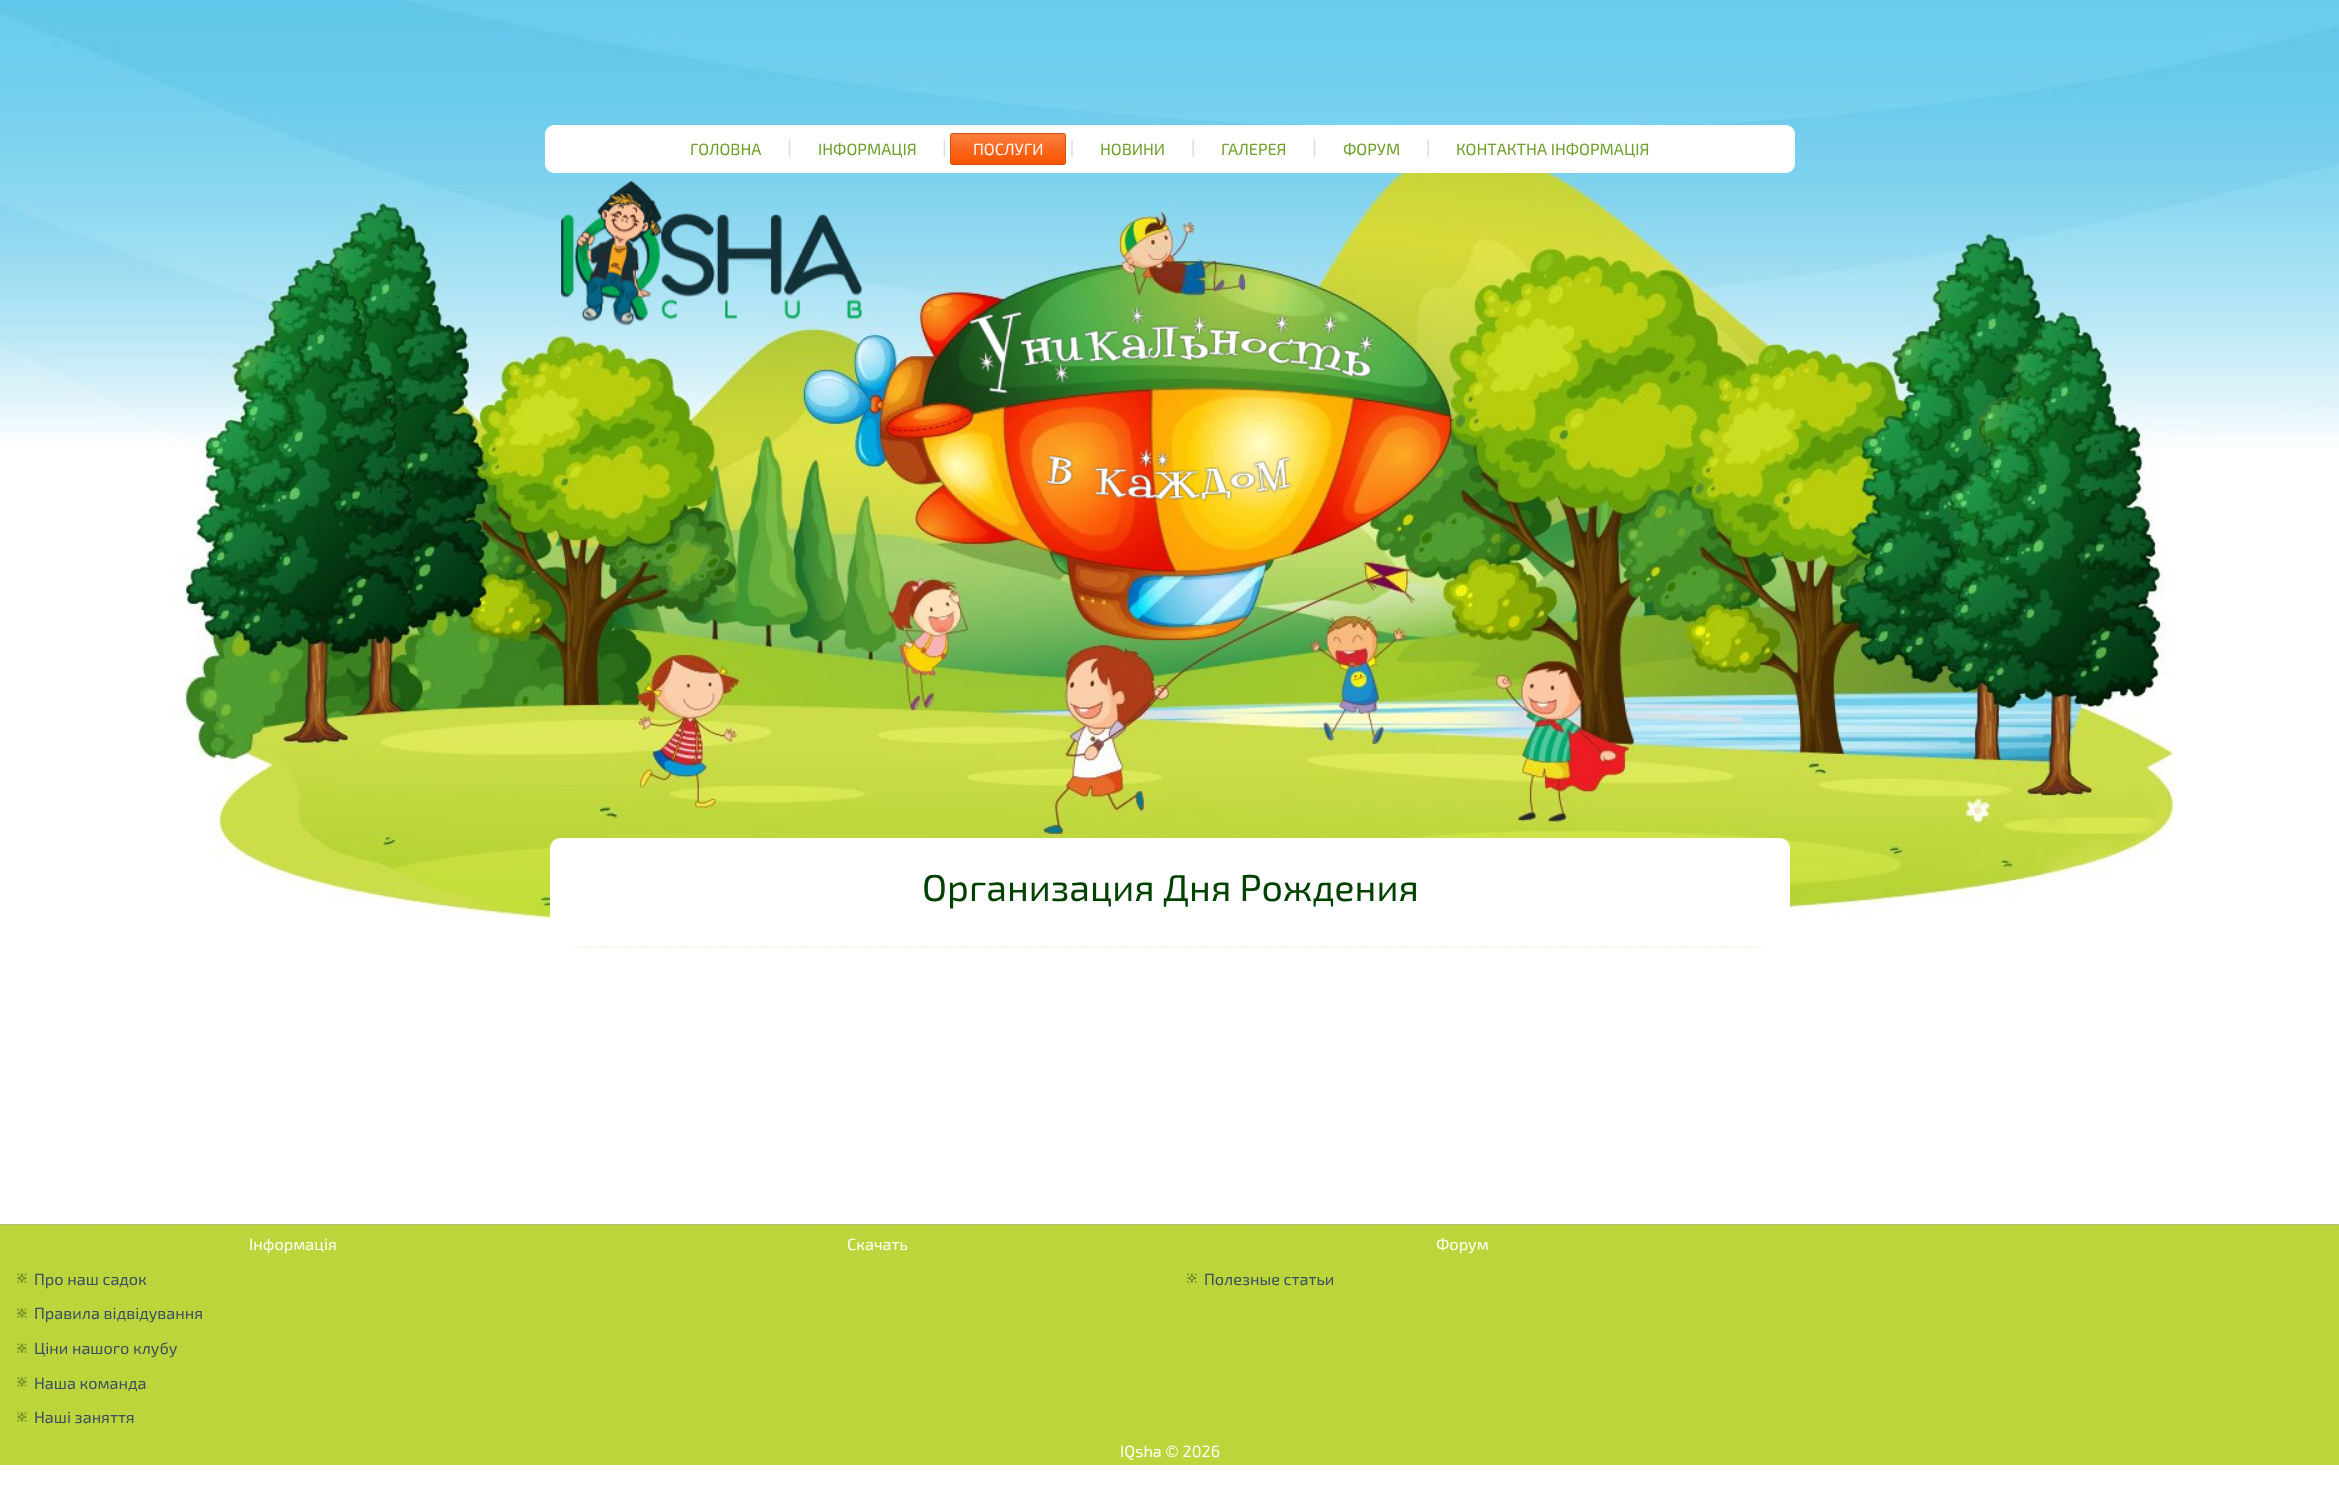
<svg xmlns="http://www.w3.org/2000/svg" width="2339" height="1489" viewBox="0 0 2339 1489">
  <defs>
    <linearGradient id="g1" gradientUnits="userSpaceOnUse" x1="1008" y1="133" x2="1008" y2="165"><stop offset="0" stop-color="#fb7f41"/><stop offset="0.86" stop-color="#fa5705"/><stop offset="1" stop-color="#f05305"/></linearGradient>
  </defs>
  <rect width="100%" height="100%" fill="#fff"/>
  <image x="0" y="0" width="2339" height="933" href="img/1.png"/>
  <rect x="545" y="125" width="1250" height="48" rx="9" fill="#fff"/>
  <image x="788" y="139" width="3" height="18" href="img/2.png"/>
  <image x="943" y="139" width="3" height="18" href="img/2.png"/>
  <rect x="950.5" y="133.5" width="115" height="31" rx="2" fill="url(#g1)" stroke="#d74b04"/>
  <image x="1070" y="139" width="3" height="18" href="img/3.png"/>
  <image x="1192" y="139" width="2" height="18" href="img/4.png"/>
  <image x="1313" y="139" width="3" height="18" href="img/2.png"/>
  <image x="1427" y="139" width="2" height="18" href="img/4.png"/>
  <image x="561" y="181" width="301" height="145" href="img/5.png"/>
  <image x="968" y="306" width="406" height="196" href="img/6.png"/>
  <rect x="550" y="838" width="1240" height="362" rx="10" fill="#fff"/>
  <path d="M575 947H1765" fill="none" stroke="#ddefc3" stroke-width="1.2" stroke-dasharray="1.25 1.25"/>
  <path d="M0 1224h2339v241H0z" fill="#bcd53b"/>
  <path d="M0 1224.5H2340" fill="none" stroke="#9cafc4" stroke-width="1.2" stroke-dasharray="1.25 1.25"/>
  <image x="17" y="1273" width="10" height="10" href="img/7.png"/>
  <image x="17" y="1308" width="10" height="10" href="img/8.png"/>
  <image x="17" y="1343" width="10" height="10" href="img/8.png"/>
  <image x="17" y="1376" width="10" height="11" href="img/9.png"/>
  <image x="17" y="1411" width="10" height="11" href="img/9.png"/>
  <image x="1187" y="1273" width="10" height="10" href="img/10.png"/>
  <g font-family="'Exo 2'" font-size="16.25" fill="#6e9f2a">
    <text x="690" y="155">ГОЛОВНА</text>
    <text x="818" y="155">ІНФОРМАЦІЯ</text>
  </g>
  <text x="973" y="155" font-family="'Exo 2'" font-size="16.25" fill="#fff5f0">ПОСЛУГИ</text>
  <g font-family="'Exo 2'" font-size="16.25" fill="#6e9f2a">
    <text x="1100" y="155">НОВИНИ</text>
    <text x="1221" y="155">ГАЛЕРЕЯ</text>
    <text x="1343" y="155">ФОРУМ</text>
    <text x="1456" y="155">КОНТАКТНА ІНФОРМАЦІЯ</text>
  </g>
  <text x="922" y="901" font-family="'Exo 2'" font-size="37.5" fill="#004000">Организация Дня Рождения</text>
  <text x="249" y="1250" font-family="'Exo 2'" font-size="16.25" fill="#fff">Інформація</text>
  <g font-family="'Exo 2'" font-size="16.25" fill="#3b4e63">
    <text x="34" y="1285">Про наш садок</text>
    <text x="34" y="1319">Правила відвідування</text>
    <text x="34" y="1354">Ціни нашого клубу</text>
    <text x="34" y="1389">Наша команда</text>
    <text x="34" y="1423">Наші заняття</text>
  </g>
  <g font-family="'Exo 2'" font-size="16.25" fill="#fff">
    <text x="847" y="1250">Скачать</text>
    <text x="1436" y="1250">Форум</text>
  </g>
  <text x="1204" y="1285" font-family="'Exo 2'" font-size="16.25" fill="#3b4e63">Полезные статьи</text>
  <text x="1120" y="1457" font-family="'Exo 2'" font-size="16.25" fill="#fff">IQsha © 2026</text>
</svg>
